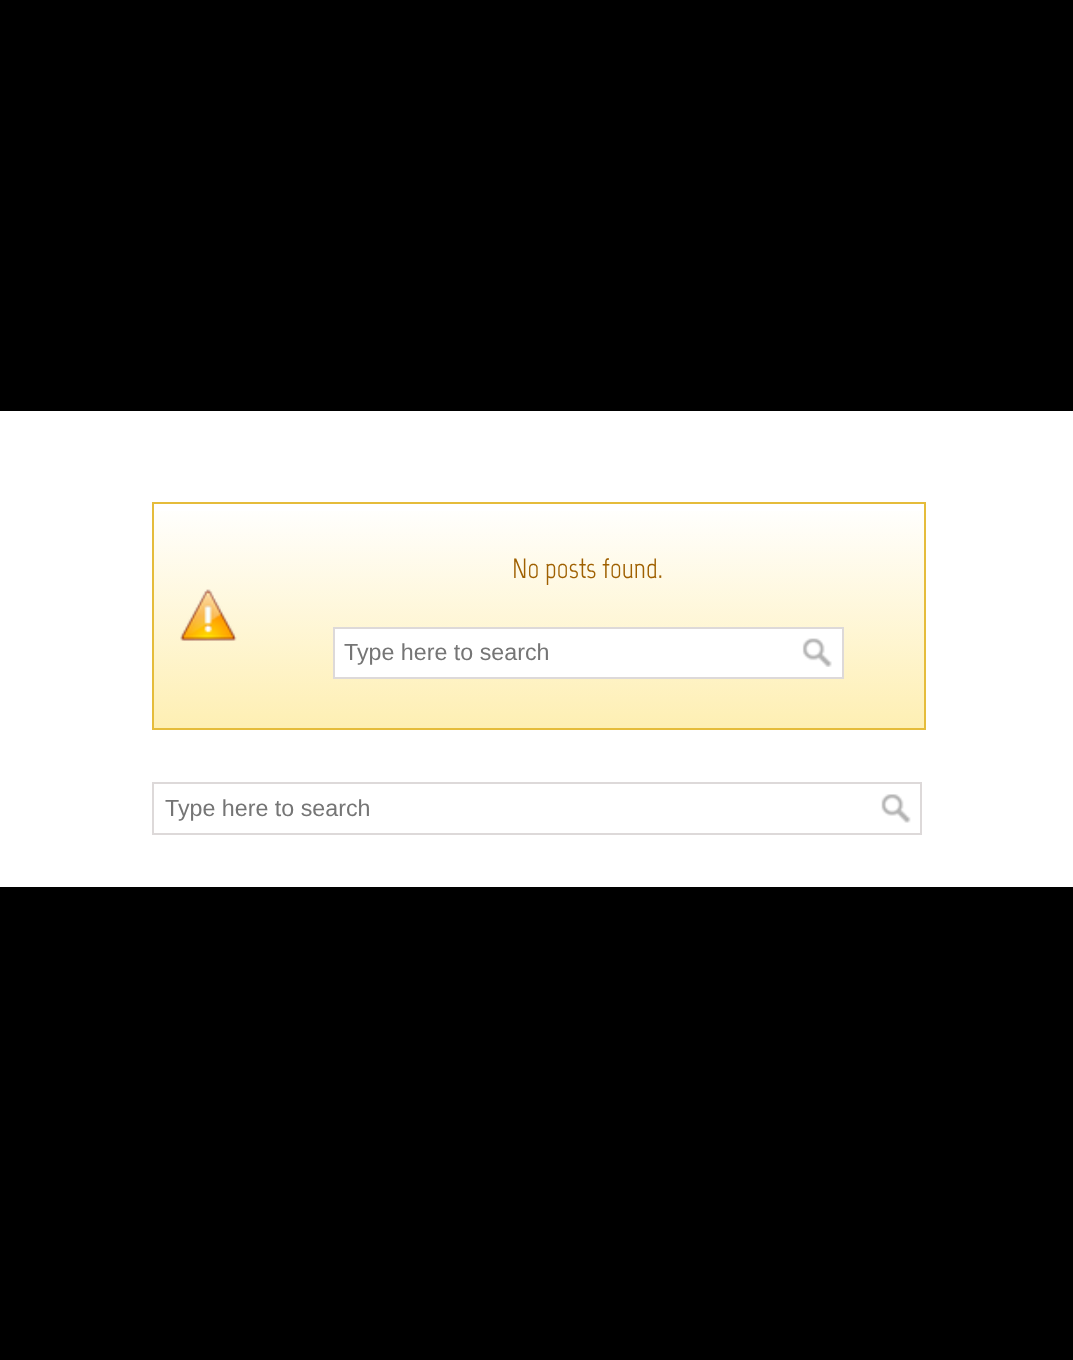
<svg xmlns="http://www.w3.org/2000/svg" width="1073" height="1360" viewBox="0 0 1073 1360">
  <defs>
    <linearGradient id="g1" gradientUnits="userSpaceOnUse" x1="539" y1="504" x2="539" y2="728"><stop offset="0" stop-color="#fff"/><stop offset="1" stop-color="#feefb3"/></linearGradient>
  </defs>
  <rect width="100%" height="100%" fill="#000"/>
  <path d="M0 411h1073v476H0z" fill="#fff"/>
  <path d="M154 511h770v217H154z" fill="url(#g1)"/>
  <path d="M153 503h772v226H153z" fill="none" stroke="#e5bc3b" stroke-width="2"/>
  <image x="180" y="589" width="57" height="52" href="img/1.png"/>
  <path d="M334 628h509v50H334z" fill="#fff" stroke="#ddd9d9" stroke-width="2"/>
  <image x="802" y="638" width="30" height="29" href="img/2.png"/>
  <path d="M153 783h768v51H153z" fill="none" stroke="#ddd9d9" stroke-width="2"/>
  <image x="881" y="794" width="30" height="29" href="img/3.png"/>
  <text x="512" y="578" font-family="Marvel" font-size="28" fill="#9f6000">No posts found.</text>
  <g font-family="Liberation Sans" font-size="23.25" fill="#757575">
    <text x="344" y="660">Type here to search</text>
    <text x="165" y="816">Type here to search</text>
  </g>
</svg>
